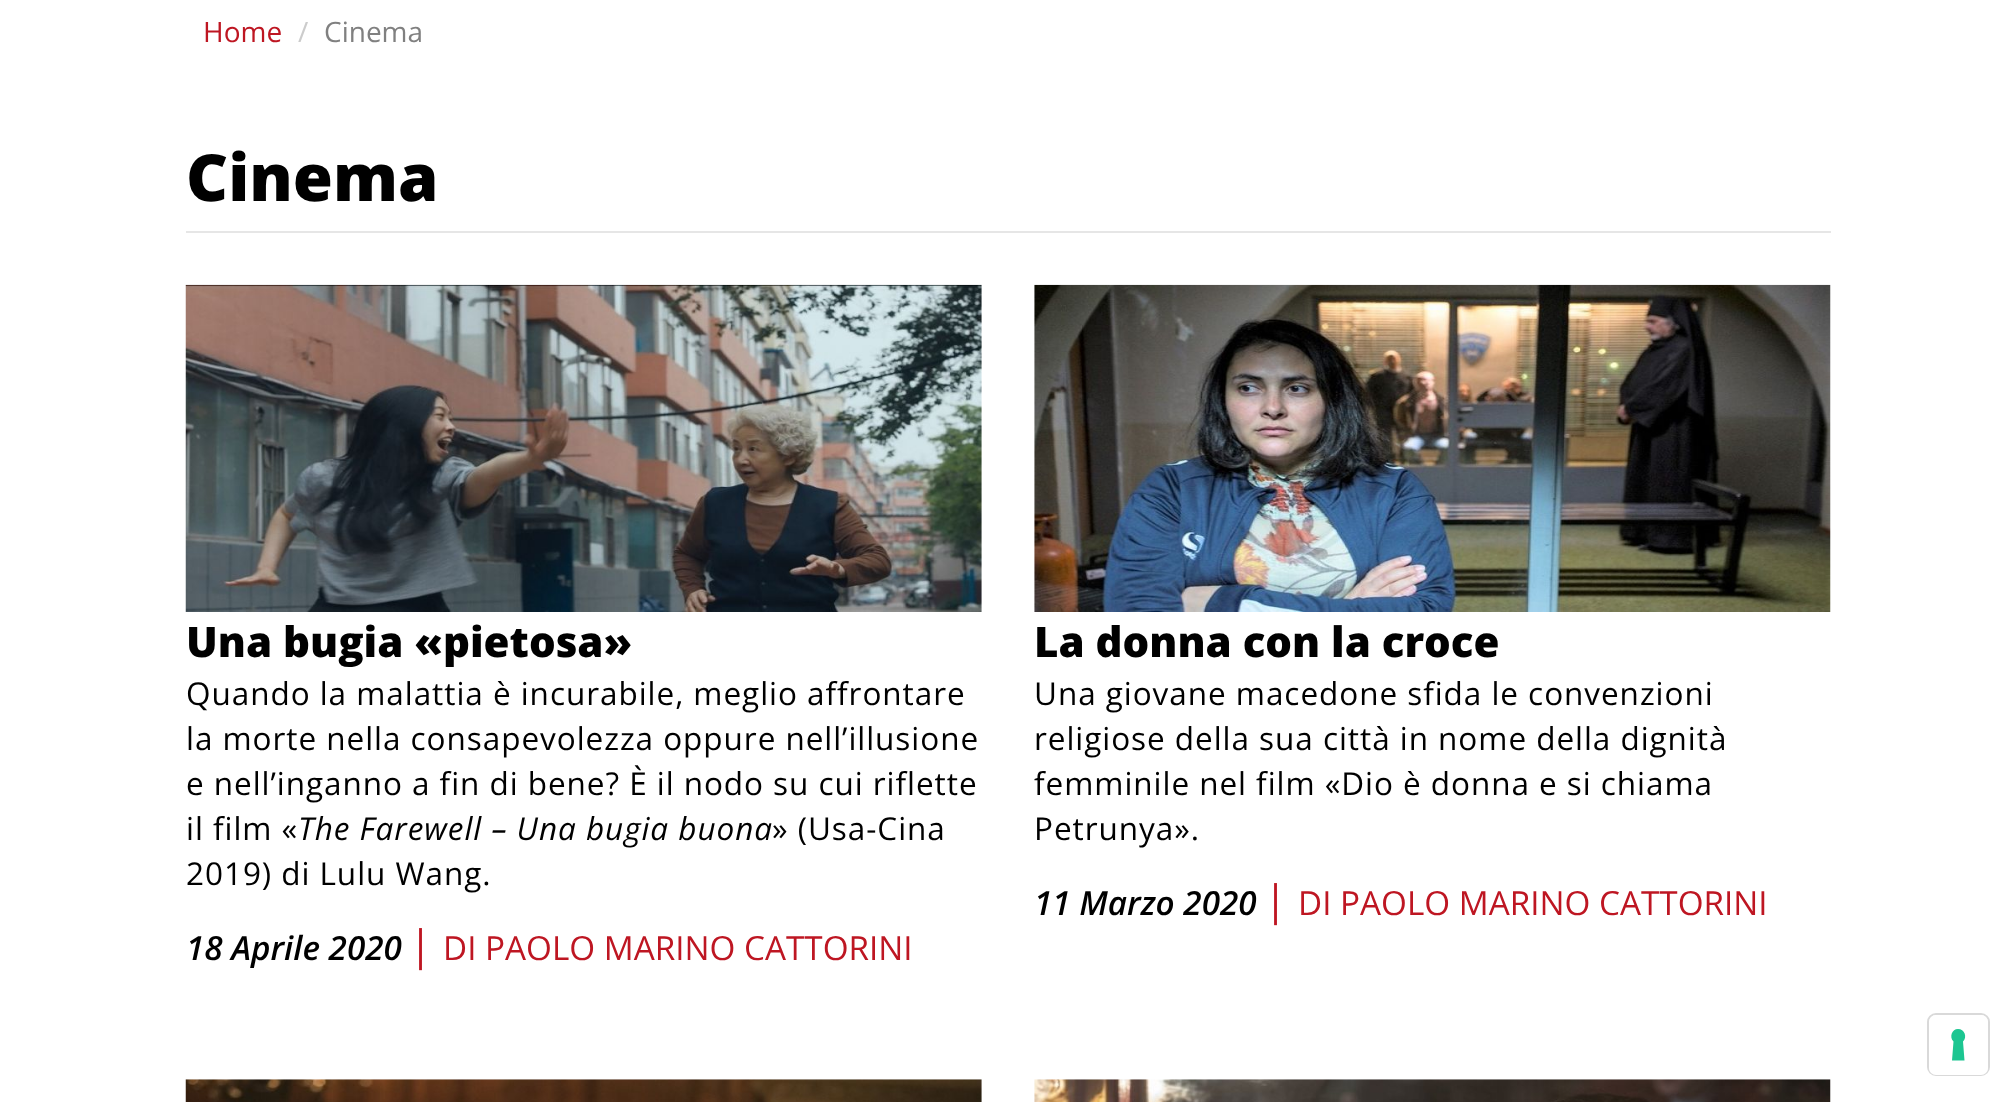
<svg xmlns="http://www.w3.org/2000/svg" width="2015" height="1102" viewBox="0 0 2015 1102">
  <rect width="100%" height="100%" fill="#fff"/>
  <path d="M186 231h1645v2H186z" fill="#e6e6e6"/>
  <image x="185" y="284" width="797" height="328" href="img/1.png"/>
  <image x="1034" y="284" width="797" height="328" href="img/2.png"/>
  <image x="185" y="1079" width="797" height="23" href="img/3.png"/>
  <image x="1034" y="1079" width="797" height="23" href="img/4.png"/>
  <rect x="1928" y="1014" width="61" height="61" rx="8" fill="none" stroke="#d9d9d9" stroke-width="2"/>
  <rect x="1929" y="1015" width="59" height="60" rx="7" fill="#fff"/>
  <path d="M1958 1029C1964.5 1029 1967.5 1037 1963 1041.5L1964.5 1060.5H1952L1953.5 1041.5C1949 1037 1952 1029 1958 1029Z" fill="#1cc691" fill-rule="evenodd"/>
  <text x="203" y="42" font-family="Open Sans" font-size="28" fill="#be1622">Home</text>
  <text x="298" y="42" font-family="Open Sans" font-size="28" fill="#ccc">/</text>
  <text x="324" y="42" font-family="Open Sans" font-size="28" fill="#808080">Cinema</text>
  <text x="186" y="201" font-family="Open Sans" font-size="65" font-weight="800" fill="#000">Cinema</text>
  <text x="186" y="657" font-family="Open Sans" font-size="42" font-weight="800" fill="#000">Una bugia «pietosa»</text>
  <g font-family="Open Sans" font-size="31.5" letter-spacing="0.95" fill="#000">
    <text x="186" y="705">Quando la malattia è incurabile, meglio affrontare</text>
    <text x="186" y="750">la morte nella consapevolezza oppure nell’illusione</text>
    <text x="186" y="795">e nell’inganno a fin di bene? È il nodo su cui riflette</text>
    <text x="186" y="840">il film «</text>
  </g>
  <text x="298" y="840" font-family="Open Sans" font-size="31.5" font-style="italic" letter-spacing="0.95" fill="#000">The Farewell – Una bugia buona</text>
  <g font-family="Open Sans" font-size="31.5" letter-spacing="0.95" fill="#000">
    <text x="772" y="840">» (Usa-Cina</text>
    <text x="186" y="885">2019) di Lulu Wang.</text>
  </g>
  <text x="186" y="960" font-family="Open Sans" font-size="33.25" font-weight="600" font-style="italic" fill="#000">18 Aprile 2020</text>
  <text x="409" y="960" font-family="Open Sans" font-size="42" fill="#be1622">|</text>
  <text x="443" y="960" font-family="Open Sans" font-size="33.25" fill="#be1622">DI PAOLO MARINO CATTORINI</text>
  <text x="1034" y="657" font-family="Open Sans" font-size="42" font-weight="800" fill="#000">La donna con la croce</text>
  <g font-family="Open Sans" font-size="31.5" letter-spacing="0.95" fill="#000">
    <text x="1034" y="705">Una giovane macedone sfida le convenzioni</text>
    <text x="1034" y="750">religiose della sua città in nome della dignità</text>
    <text x="1034" y="795">femminile nel film «Dio è donna e si chiama</text>
    <text x="1034" y="840">Petrunya».</text>
  </g>
  <text x="1034" y="915" font-family="Open Sans" font-size="33.25" font-weight="600" font-style="italic" fill="#000">11 Marzo 2020</text>
  <text x="1264" y="915" font-family="Open Sans" font-size="42" fill="#be1622">|</text>
  <text x="1298" y="915" font-family="Open Sans" font-size="33.25" fill="#be1622">DI PAOLO MARINO CATTORINI</text>
</svg>
